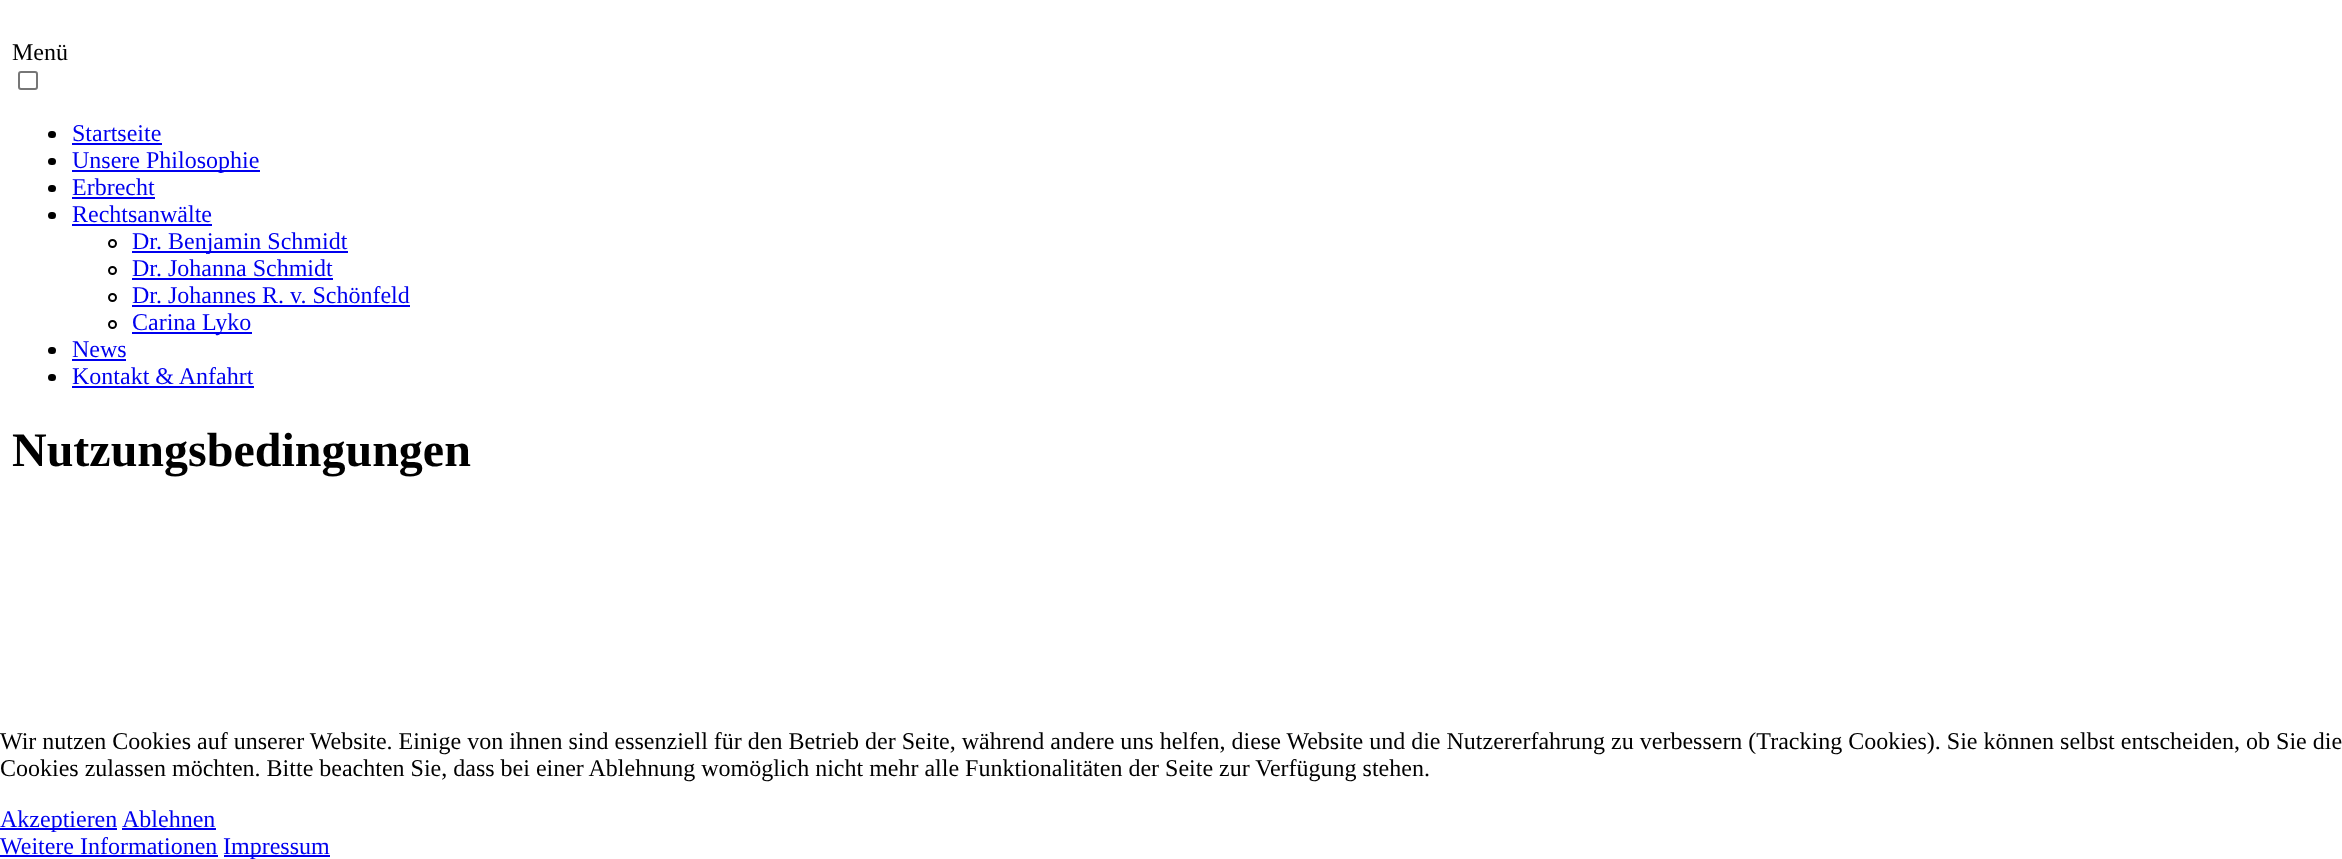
<svg xmlns="http://www.w3.org/2000/svg" width="2342" height="859" viewBox="0 0 2342 859">
  <rect width="100%" height="100%" fill="#fff"/>
  <rect x="19" y="72" width="18" height="17" rx="2" fill="none" stroke="#767676" stroke-width="2"/>
  <rect x="48" y="131" width="8" height="7" rx="3.5" fill="#000"/>
  <path d="M72 143h90v2H72z" fill="#00e"/>
  <rect x="48" y="158" width="8" height="7" rx="3.5" fill="#000"/>
  <path d="M72 170h188v2H72z" fill="#00e"/>
  <rect x="48" y="185" width="8" height="7" rx="3.5" fill="#000"/>
  <path d="M72 197h83v2H72z" fill="#00e"/>
  <rect x="48" y="212" width="8" height="7" rx="3.5" fill="#000"/>
  <path d="M72 224h140v2H72z" fill="#00e"/>
  <circle cx="112.5" cy="243.5" r="3.5" fill="none" stroke="#000" stroke-width="2"/>
  <path d="M132 251h216v2H132z" fill="#00e"/>
  <circle cx="112.5" cy="270.5" r="3.5" fill="none" stroke="#000" stroke-width="2"/>
  <path d="M132 278h201v2H132z" fill="#00e"/>
  <circle cx="112.5" cy="297.5" r="3.5" fill="none" stroke="#000" stroke-width="2"/>
  <path d="M132 305h278v2H132z" fill="#00e"/>
  <circle cx="112.5" cy="324.5" r="3.5" fill="none" stroke="#000" stroke-width="2"/>
  <path d="M132 332h120v2H132z" fill="#00e"/>
  <rect x="48" y="347" width="8" height="7" rx="3.5" fill="#000"/>
  <path d="M72 359h54v2H72z" fill="#00e"/>
  <rect x="48" y="374" width="8" height="7" rx="3.5" fill="#000"/>
  <path d="M72 386h182v2H72z" fill="#00e"/>
  <path d="M0 828h117v2H0z" fill="#00e"/>
  <path d="M122 828h94v2H122z" fill="#00e"/>
  <path d="M0 855h218v2H0z" fill="#00e"/>
  <path d="M224 855h106v2H224z" fill="#00e"/>
  <text x="12" y="60" font-family="Liberation Serif" font-size="24" fill="#000">Menü</text>
  <g font-family="Liberation Serif" font-size="24" fill="#00e">
    <text x="72" y="141">Startseite</text>
    <text x="72" y="168">Unsere Philosophie</text>
    <text x="72" y="195">Erbrecht</text>
    <text x="72" y="222">Rechtsanwälte</text>
    <text x="132" y="249">Dr. Benjamin Schmidt</text>
    <text x="132" y="276">Dr. Johanna Schmidt</text>
    <text x="132" y="303">Dr. Johannes R. v. Schönfeld</text>
    <text x="132" y="330">Carina Lyko</text>
    <text x="72" y="357">News</text>
    <text x="72" y="384">Kontakt &amp; Anfahrt</text>
  </g>
  <text x="12" y="466" font-family="Liberation Serif" font-size="48" font-weight="bold" fill="#000">Nutzungsbedingungen</text>
  <g font-family="Liberation Serif" font-size="24" fill="#000">
    <text x="0" y="749">Wir nutzen Cookies auf unserer Website. Einige von ihnen sind essenziell für den Betrieb der Seite, während andere uns helfen, diese Website und die Nutzererfahrung zu verbessern (Tracking Cookies). Sie können selbst entscheiden, ob Sie die</text>
    <text x="0" y="776">Cookies zulassen möchten. Bitte beachten Sie, dass bei einer Ablehnung womöglich nicht mehr alle Funktionalitäten der Seite zur Verfügung stehen.</text>
  </g>
  <g font-family="Liberation Serif" font-size="24" fill="#00e">
    <text x="0" y="827">Akzeptieren</text>
    <text x="122" y="827">Ablehnen</text>
    <text x="0" y="854">Weitere Informationen</text>
    <text x="223" y="854">Impressum</text>
  </g>
</svg>
